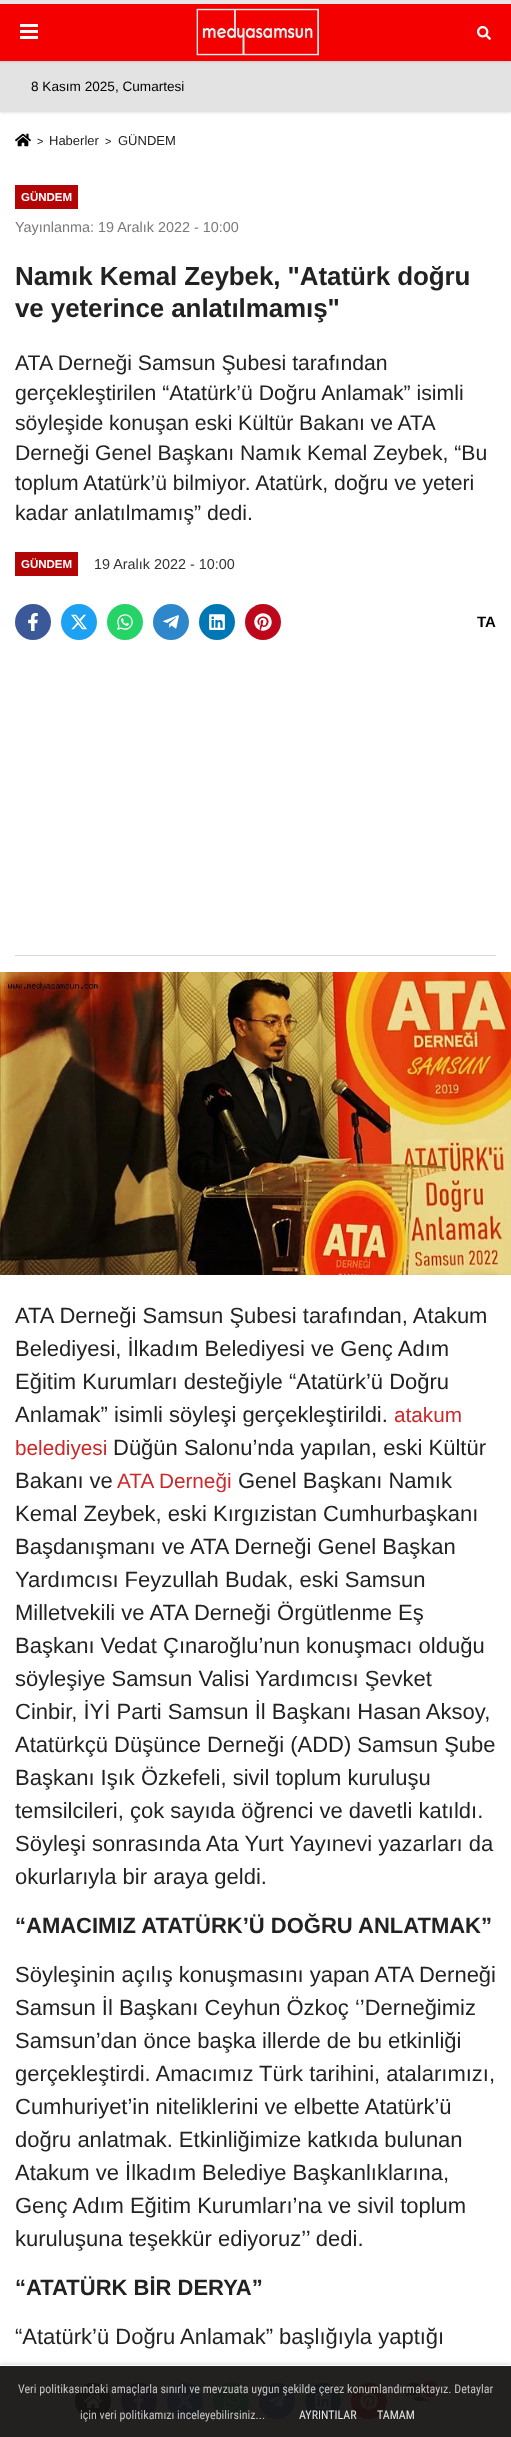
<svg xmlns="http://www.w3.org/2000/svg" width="511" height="2437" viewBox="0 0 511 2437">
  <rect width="100%" height="100%" fill="#e6e6e6"/>
  <path d="M0 112h511v2253H0z" fill="#fff"/>
  <path d="M0 62h511v51H0z" fill="#0000001a" filter="blur(1px)"/>
  <path d="M0 61h511v51H0z" fill="#e3e3e3"/>
  <path d="M0 2h511v60H0z" fill="#0000001a" filter="blur(1px)"/>
  <path d="M0 4h511v57H0z" fill="#f40000"/>
  <path d="M0 1h511v3H0z" fill="#ebe7e6"/>
  <path d="M20 24h18v3H20z" fill="#fff"/>
  <path d="M20 30h18v3H20z" fill="#fff"/>
  <path d="M20 36h18v3H20z" fill="#fff"/>
  <image x="196" y="8" width="123" height="48" href="img/1.png"/>
  <image x="477" y="26" width="14" height="14" href="img/2.png"/>
  <image x="15" y="133" width="16" height="14" href="img/3.png"/>
  <path d="M15 185h63v24H15z" fill="#b30505"/>
  <path d="M15 552h63v24H15z" fill="#b30505"/>
  <circle cx="33" cy="622" r="18" fill="#3b5998"/>
  <image x="28" y="613" width="10" height="18" href="img/4.png"/>
  <circle cx="79" cy="622" r="18" fill="#1da1f2"/>
  <image x="71" y="614" width="16" height="16" href="img/5.png"/>
  <circle cx="125" cy="622" r="18" fill="#25d366"/>
  <image x="117" y="614" width="16" height="16" href="img/6.png"/>
  <circle cx="171" cy="622" r="18" fill="#2e87ca"/>
  <image x="163" y="615" width="16" height="14" href="img/7.png"/>
  <circle cx="217" cy="622" r="18" fill="#0077b5"/>
  <image x="209" y="614" width="16" height="16" href="img/8.png"/>
  <circle cx="263" cy="622" r="18" fill="#bd081c"/>
  <image x="254" y="613" width="18" height="18" href="img/9.png"/>
  <path d="M0 2364h511v72H0z" fill="#bababa94" filter="blur(2px)"/>
  <path d="M0 2365h511v72H0z" fill="#fff"/>
  <circle cx="93" cy="2401" r="18" fill="#000"/>
  <image x="84" y="2394" width="18" height="14" href="img/10.png"/>
  <circle cx="139" cy="2401" r="18" fill="#3b5998"/>
  <image x="134" y="2392" width="10" height="18" href="img/4.png"/>
  <circle cx="185" cy="2401" r="18" fill="#1da1f2"/>
  <image x="177" y="2393" width="16" height="16" href="img/5.png"/>
  <circle cx="231" cy="2401" r="18" fill="#25d366"/>
  <image x="223" y="2393" width="16" height="16" href="img/6.png"/>
  <circle cx="277" cy="2401" r="18" fill="#2e87ca"/>
  <image x="269" y="2394" width="16" height="14" href="img/7.png"/>
  <circle cx="323" cy="2401" r="18" fill="#0077b5"/>
  <image x="315" y="2393" width="16" height="16" href="img/8.png"/>
  <circle cx="369" cy="2401" r="18" fill="#bd081c"/>
  <image x="360" y="2392" width="18" height="18" href="img/11.png"/>
  <image x="405" y="2382" width="24" height="20" href="img/12.png"/>
  <circle cx="430" cy="2389" r="9.5" fill="#cc292b" stroke="#fff" stroke-width="3"/>
  <path d="M15 955h481v1H15z" fill="#d9d9d9"/>
  <image x="0" y="972" width="511" height="303" href="img/13.png"/>
  <path d="M0 2366h511v71H0z" fill="#171414f2"/>
  <text x="31" y="91" font-family="Liberation Sans" font-size="13.6" fill="#000">8 Kasım 2025, Cumartesi</text>
  <text x="37" y="145" font-family="Liberation Sans" font-size="11" fill="#222">&gt;</text>
  <text x="49" y="145" font-family="Liberation Sans" font-size="13" fill="#222">Haberler</text>
  <text x="105" y="145" font-family="Liberation Sans" font-size="11" fill="#222">&gt;</text>
  <text x="118" y="145" font-family="Liberation Sans" font-size="13" fill="#222">GÜNDEM</text>
  <text x="21" y="201" font-family="Liberation Sans" font-size="11.5" font-weight="bold" fill="#fff">GÜNDEM</text>
  <text x="15" y="232" font-family="Liberation Sans" font-size="14.4" fill="#7a7a7a">Yayınlanma: 19 Aralık 2022 - 10:00</text>
  <g font-family="Liberation Sans" font-size="26" font-weight="bold" letter-spacing="-0.1" fill="#222">
    <text x="15" y="285">Namık Kemal Zeybek, "Atatürk doğru</text>
    <text x="15" y="317">ve yeterince anlatılmamış"</text>
  </g>
  <g font-family="Liberation Sans" font-size="21.2" fill="#222">
    <text x="15" y="370">ATA Derneği Samsun Şubesi tarafından</text>
    <text x="15" y="400">gerçekleştirilen “Atatürk’ü Doğru Anlamak” isimli</text>
    <text x="15" y="430" word-spacing="-0.25">söyleşide konuşan eski Kültür Bakanı ve ATA</text>
    <text x="15" y="460">Derneği Genel Başkanı Namık Kemal Zeybek, “Bu</text>
    <text x="15" y="490">toplum Atatürk’ü bilmiyor. Atatürk, doğru ve yeteri</text>
    <text x="15" y="520">kadar anlatılmamış” dedi.</text>
  </g>
  <text x="21" y="568" font-family="Liberation Sans" font-size="11.5" font-weight="bold" fill="#fff">GÜNDEM</text>
  <text x="94" y="569" font-family="Liberation Sans" font-size="14.4" fill="#333">19 Aralık 2022 - 10:00</text>
  <text x="477" y="627" font-family="Liberation Sans" font-size="15" font-weight="bold" fill="#000">TA</text>
  <g font-family="Liberation Sans" font-size="22" fill="#222">
    <text x="15" y="1323">ATA Derneği Samsun Şubesi tarafından, Atakum</text>
    <text x="15" y="1356">Belediyesi, İlkadım Belediyesi ve Genç Adım</text>
    <text x="15" y="1389">Eğitim Kurumları desteğiyle “Atatürk’ü Doğru</text>
    <text x="15" y="1422">Anlamak” isimli söyleşi gerçekleştirildi.</text>
  </g>
  <g font-family="Liberation Sans" font-size="20.75" fill="#cc292b">
    <text x="394" y="1422">atakum</text>
    <text x="15" y="1455">belediyesi</text>
  </g>
  <g font-family="Liberation Sans" font-size="22" fill="#222">
    <text x="113" y="1455">Düğün Salonu’nda yapılan, eski Kültür</text>
    <text x="15" y="1488">Bakanı ve</text>
  </g>
  <text x="117" y="1488" font-family="Liberation Sans" font-size="20.75" fill="#cc292b">ATA Derneği</text>
  <g font-family="Liberation Sans" font-size="22" fill="#222">
    <text x="238" y="1488">Genel Başkanı Namık</text>
    <text x="15" y="1521">Kemal Zeybek, eski Kırgızistan Cumhurbaşkanı</text>
    <text x="15" y="1554">Başdanışmanı ve ATA Derneği Genel Başkan</text>
    <text x="15" y="1587">Yardımcısı Feyzullah Budak, eski Samsun</text>
    <text x="15" y="1620">Milletvekili ve ATA Derneği Örgütlenme Eş</text>
    <text x="15" y="1653">Başkanı Vedat Çınaroğlu’nun konuşmacı olduğu</text>
    <text x="15" y="1686">söyleşiye Samsun Valisi Yardımcısı Şevket</text>
    <text x="15" y="1719">Cinbir, İYİ Parti Samsun İl Başkanı Hasan Aksoy,</text>
    <text x="15" y="1752">Atatürkçü Düşünce Derneği (ADD) Samsun Şube</text>
    <text x="15" y="1785">Başkanı Işık Özkefeli, sivil toplum kuruluşu</text>
    <text x="15" y="1818">temsilcileri, çok sayıda öğrenci ve davetli katıldı.</text>
    <text x="15" y="1851">Söyleşi sonrasında Ata Yurt Yayınevi yazarları da</text>
    <text x="15" y="1884">okurlarıyla bir araya geldi.</text>
  </g>
  <text x="15" y="1933" font-family="Liberation Sans" font-size="22" font-weight="bold" fill="#222">“AMACIMIZ ATATÜRK’Ü DOĞRU ANLATMAK”</text>
  <g font-family="Liberation Sans" font-size="22" fill="#222">
    <text x="15" y="1982">Söyleşinin açılış konuşmasını yapan ATA Derneği</text>
    <text x="15" y="2015">Samsun İl Başkanı Ceyhun Özkoç ‘’Derneğimiz</text>
    <text x="15" y="2048">Samsun’dan önce başka illerde de bu etkinliği</text>
    <text x="15" y="2081">gerçekleştirdi. Amacımız Türk tarihini, atalarımızı,</text>
    <text x="15" y="2114">Cumhuriyet’in niteliklerini ve elbette Atatürk’ü</text>
    <text x="15" y="2147">doğru anlatmak. Etkinliğimize katkıda bulunan</text>
    <text x="15" y="2180">Atakum ve İlkadım Belediye Başkanlıklarına,</text>
    <text x="15" y="2213">Genç Adım Eğitim Kurumları’na ve sivil toplum</text>
    <text x="15" y="2246">kuruluşuna teşekkür ediyoruz’’ dedi.</text>
  </g>
  <text x="15" y="2295" font-family="Liberation Sans" font-size="22" font-weight="bold" fill="#222">“ATATÜRK BİR DERYA”</text>
  <text x="15" y="2344" font-family="Liberation Sans" font-size="22" fill="#222">“Atatürk’ü Doğru Anlamak” başlığıyla yaptığı</text>
  <g font-family="Roboto Condensed" font-size="12" fill="#c3c3c3">
    <text x="18" y="2393">Veri politikasındaki amaçlarla sınırlı ve mevzuata uygun şekilde çerez konumlandırmaktayız. Detaylar</text>
    <text x="80" y="2419">için veri politikamızı inceleyebilirsiniz...</text>
  </g>
  <g font-family="Roboto Condensed" font-size="12" fill="#e4e4e4">
    <text x="299" y="2419">AYRINTILAR</text>
    <text x="377" y="2419">TAMAM</text>
  </g>
</svg>
